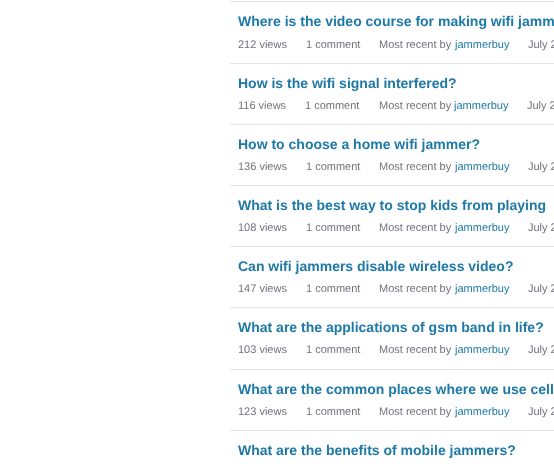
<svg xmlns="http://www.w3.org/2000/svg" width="554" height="469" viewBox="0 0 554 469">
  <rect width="100%" height="100%" fill="#fff"/>
  <path d="M230 1h324v1H230z" fill="#e6e6e6"/>
  <path d="M230 63h324v1H230z" fill="#e6e6e6"/>
  <path d="M230 124h324v1H230z" fill="#e6e6e6"/>
  <path d="M230 185h324v1H230z" fill="#e6e6e6"/>
  <path d="M230 246h324v1H230z" fill="#e6e6e6"/>
  <path d="M230 307h324v1H230z" fill="#e6e6e6"/>
  <path d="M230 369h324v1H230z" fill="#e6e6e6"/>
  <path d="M230 430h324v1H230z" fill="#e6e6e6"/>
  <text x="238" y="26" font-family="Liberation Sans" font-size="14" font-weight="bold" fill="#1e79a7">Where is the video course for making wifi jamm</text>
  <g font-family="Liberation Sans" font-size="11" fill="#70727c">
    <text x="238" y="48">212 views</text>
    <text x="306" y="48">1 comment</text>
    <text x="379" y="48">Most recent by</text>
  </g>
  <text x="455" y="48" font-family="Liberation Sans" font-size="11" fill="#1e79a7">jammerbuy</text>
  <text x="528" y="48" font-family="Liberation Sans" font-size="11" fill="#70727c">July 2</text>
  <text x="238" y="88" font-family="Liberation Sans" font-size="14" font-weight="bold" fill="#1e79a7">How is the wifi signal interfered?</text>
  <g font-family="Liberation Sans" font-size="11" fill="#70727c">
    <text x="238" y="109">116 views</text>
    <text x="305" y="109">1 comment</text>
    <text x="379" y="109">Most recent by</text>
  </g>
  <text x="454" y="109" font-family="Liberation Sans" font-size="11" fill="#1e79a7">jammerbuy</text>
  <text x="527" y="109" font-family="Liberation Sans" font-size="11" fill="#70727c">July 2</text>
  <text x="238" y="149" font-family="Liberation Sans" font-size="14" font-weight="bold" fill="#1e79a7">How to choose a home wifi jammer?</text>
  <g font-family="Liberation Sans" font-size="11" fill="#70727c">
    <text x="238" y="170">136 views</text>
    <text x="306" y="170">1 comment</text>
    <text x="379" y="170">Most recent by</text>
  </g>
  <text x="455" y="170" font-family="Liberation Sans" font-size="11" fill="#1e79a7">jammerbuy</text>
  <text x="528" y="170" font-family="Liberation Sans" font-size="11" fill="#70727c">July 2</text>
  <text x="238" y="210" font-family="Liberation Sans" font-size="14" font-weight="bold" fill="#1e79a7">What is the best way to stop kids from playing</text>
  <g font-family="Liberation Sans" font-size="11" fill="#70727c">
    <text x="238" y="231">108 views</text>
    <text x="306" y="231">1 comment</text>
    <text x="379" y="231">Most recent by</text>
  </g>
  <text x="455" y="231" font-family="Liberation Sans" font-size="11" fill="#1e79a7">jammerbuy</text>
  <text x="528" y="231" font-family="Liberation Sans" font-size="11" fill="#70727c">July 2</text>
  <text x="238" y="271" font-family="Liberation Sans" font-size="14" font-weight="bold" fill="#1e79a7">Can wifi jammers disable wireless video?</text>
  <g font-family="Liberation Sans" font-size="11" fill="#70727c">
    <text x="238" y="292">147 views</text>
    <text x="306" y="292">1 comment</text>
    <text x="379" y="292">Most recent by</text>
  </g>
  <text x="455" y="292" font-family="Liberation Sans" font-size="11" fill="#1e79a7">jammerbuy</text>
  <text x="528" y="292" font-family="Liberation Sans" font-size="11" fill="#70727c">July 2</text>
  <text x="238" y="332" font-family="Liberation Sans" font-size="14" font-weight="bold" fill="#1e79a7">What are the applications of gsm band in life?</text>
  <g font-family="Liberation Sans" font-size="11" fill="#70727c">
    <text x="238" y="353">103 views</text>
    <text x="306" y="353">1 comment</text>
    <text x="379" y="353">Most recent by</text>
  </g>
  <text x="455" y="353" font-family="Liberation Sans" font-size="11" fill="#1e79a7">jammerbuy</text>
  <text x="528" y="353" font-family="Liberation Sans" font-size="11" fill="#70727c">July 2</text>
  <text x="238" y="394" font-family="Liberation Sans" font-size="14" font-weight="bold" fill="#1e79a7">What are the common places where we use cell</text>
  <g font-family="Liberation Sans" font-size="11" fill="#70727c">
    <text x="238" y="415">123 views</text>
    <text x="306" y="415">1 comment</text>
    <text x="379" y="415">Most recent by</text>
  </g>
  <text x="455" y="415" font-family="Liberation Sans" font-size="11" fill="#1e79a7">jammerbuy</text>
  <text x="528" y="415" font-family="Liberation Sans" font-size="11" fill="#70727c">July 2</text>
  <text x="238" y="455" font-family="Liberation Sans" font-size="14" font-weight="bold" fill="#1e79a7">What are the benefits of mobile jammers?</text>
</svg>
